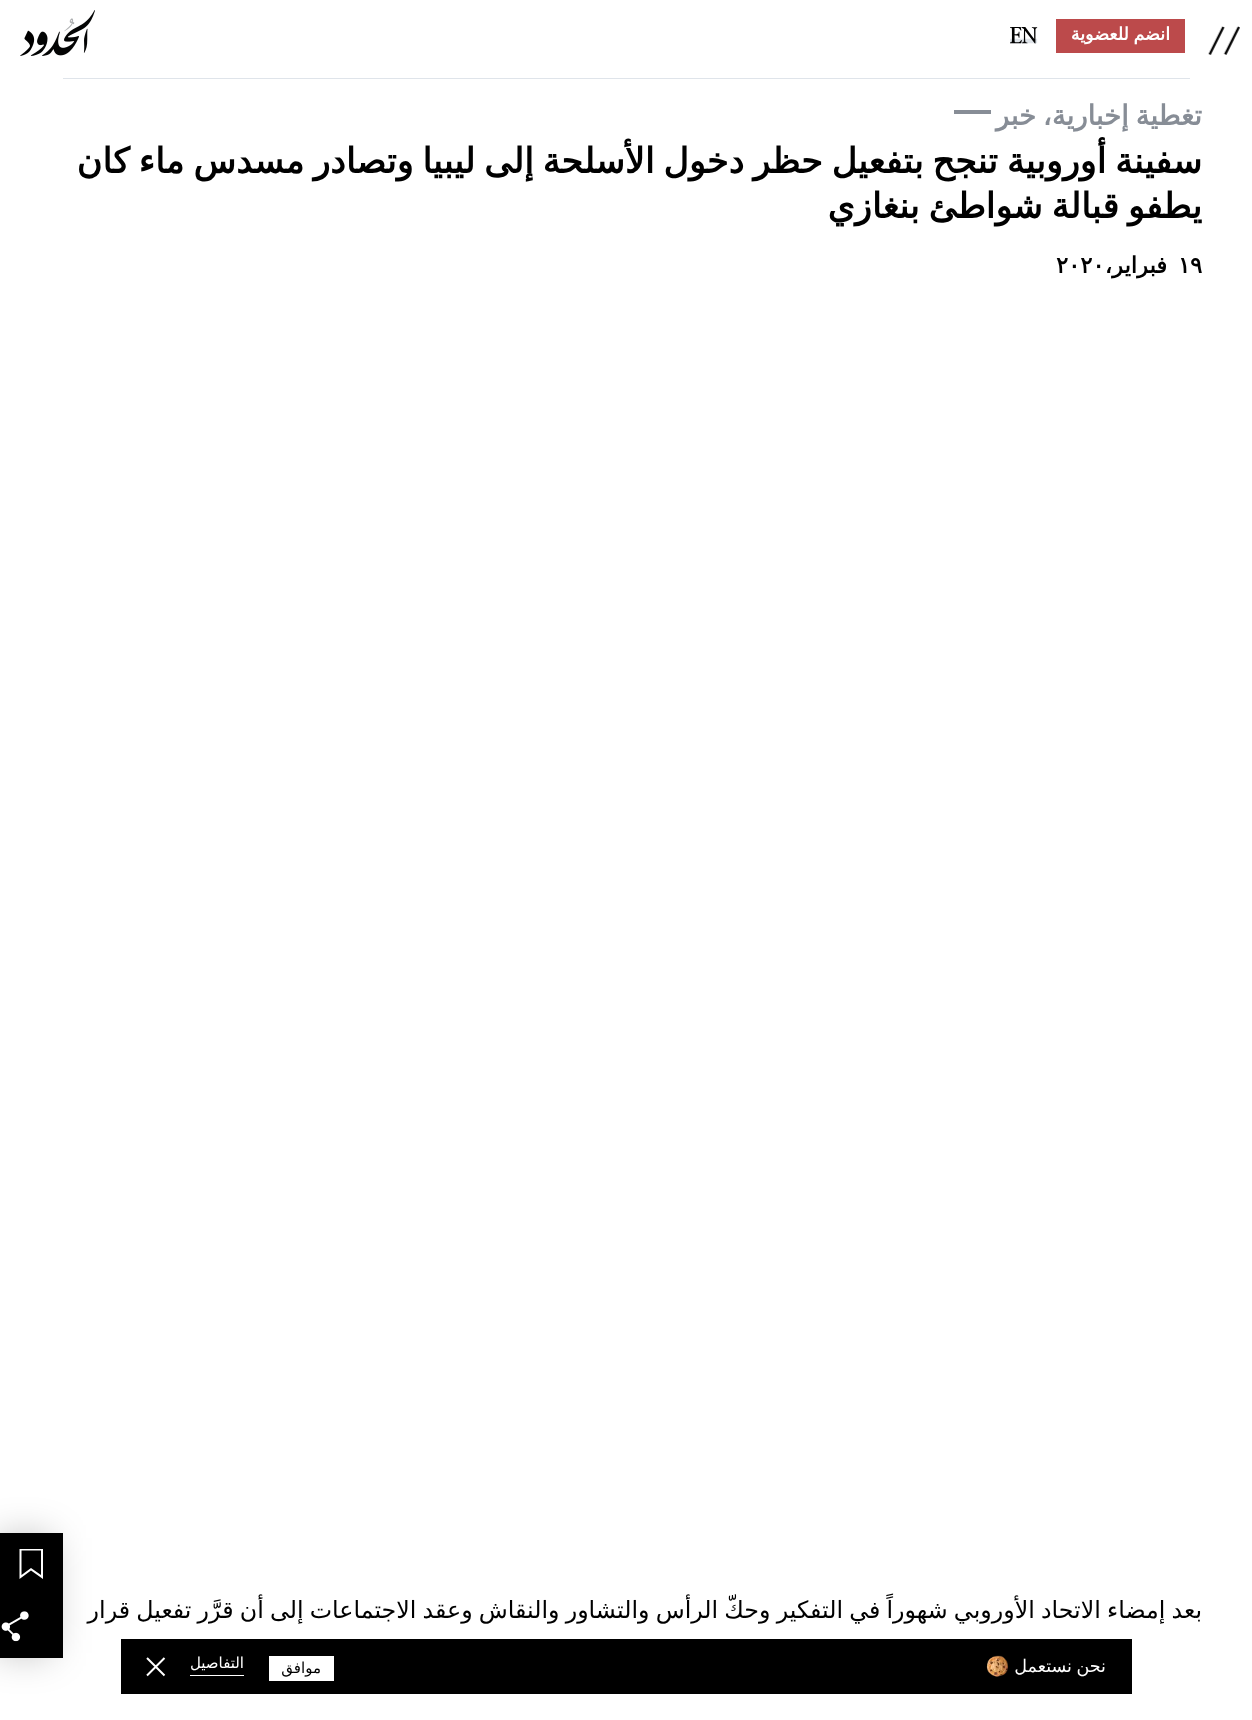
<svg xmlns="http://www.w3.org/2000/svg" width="1252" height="1720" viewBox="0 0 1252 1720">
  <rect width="100%" height="100%" fill="#fff"/>
  <image x="1208" y="26" width="32" height="29" href="img/1.png"/>
  <path d="M1056 19h129v34H1056z" fill="#bc4a4b"/>
  <image x="1010" y="27" width="28" height="17" href="img/2.png"/>
  <image x="20" y="30" width="15" height="26" href="img/4.png"/>
  <image x="30" y="10" width="65" height="46" href="img/3.png"/>
  <path d="M63 78h1127v1H63z" fill="#dfe4ea"/>
  <path d="M954 110h37v4H954z" fill="#878d96"/>
  <path d="M-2 1538h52v115H-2z" fill="#0000004a" filter="blur(19px)"/>
  <path d="M0 1533h63v125H0z" fill="#000"/>
  <path d="M43 1579L31 1570.5L19.5 1579V1549H43ZM21.5 1550.5V1575L31 1568L41 1575V1550.5Z" fill="#fff"/>
  <image x="1" y="1611" width="28" height="31" href="img/5.png"/>
  <path d="M121 1639h1011v55H121z" fill="#000"/>
  <image x="986" y="1655" width="23" height="22" href="img/6.png"/>
  <path d="M269 1656h65v25H269z" fill="#fff"/>
  <path d="M190 1675h54v1H190z" fill="#fff"/>
  <path d="M147 1658L164.5 1675.5M164.5 1658L147 1675.5" fill="none" stroke="#fff" stroke-width="2"/>
  <text x="1170" y="40" word-spacing="-1" font-family="DejaVu Sans" font-size="17.5" font-weight="bold" direction="rtl" fill="#fff">انضم للعضوية</text>
  <text x="1202" y="125" word-spacing="-2" font-family="DejaVu Sans" font-size="27.5" font-weight="bold" direction="rtl" fill="#878d96">تغطية إخبارية، خبر</text>
  <g font-family="DejaVu Sans" font-size="35" font-weight="bold" direction="rtl" fill="#000">
    <text x="1202" y="173" word-spacing="-2.25">سفينة أوروبية تنجح بتفعيل حظر دخول الأسلحة إلى ليبيا وتصادر مسدس ماء كان</text>
    <text x="1202" y="218" word-spacing="-2.25">يطفو قبالة شواطئ بنغازي</text>
  </g>
  <text x="1178" y="273" font-family="DejaVu Sans" font-size="22.5" font-weight="bold" fill="#000">١٩</text>
  <text x="1167" y="273" font-family="DejaVu Sans" font-size="22.5" font-weight="bold" direction="rtl" fill="#000">فبراير،</text>
  <text x="1056" y="273" font-family="DejaVu Sans" font-size="22.5" font-weight="bold" fill="#000">٢٠٢٠</text>
  <text x="1202" y="1618" word-spacing="-1.4" font-family="DejaVu Sans" font-size="23.75" direction="rtl" fill="#000">بعد إمضاء الاتحاد الأوروبي شهوراً في التفكير وحكّ الرأس والتشاور والنقاش وعقد الاجتماعات إلى أن قرَّر تفعيل قرار</text>
  <text x="1106" y="1672" word-spacing="-1" font-family="DejaVu Sans" font-size="17.5" direction="rtl" fill="#fff">نحن نستعمل</text>
  <text x="321" y="1673" font-family="DejaVu Sans" font-size="15" direction="rtl" fill="#000">موافق</text>
  <text x="244" y="1668" font-family="DejaVu Sans" font-size="15" direction="rtl" fill="#fff">التفاصيل</text>
</svg>
